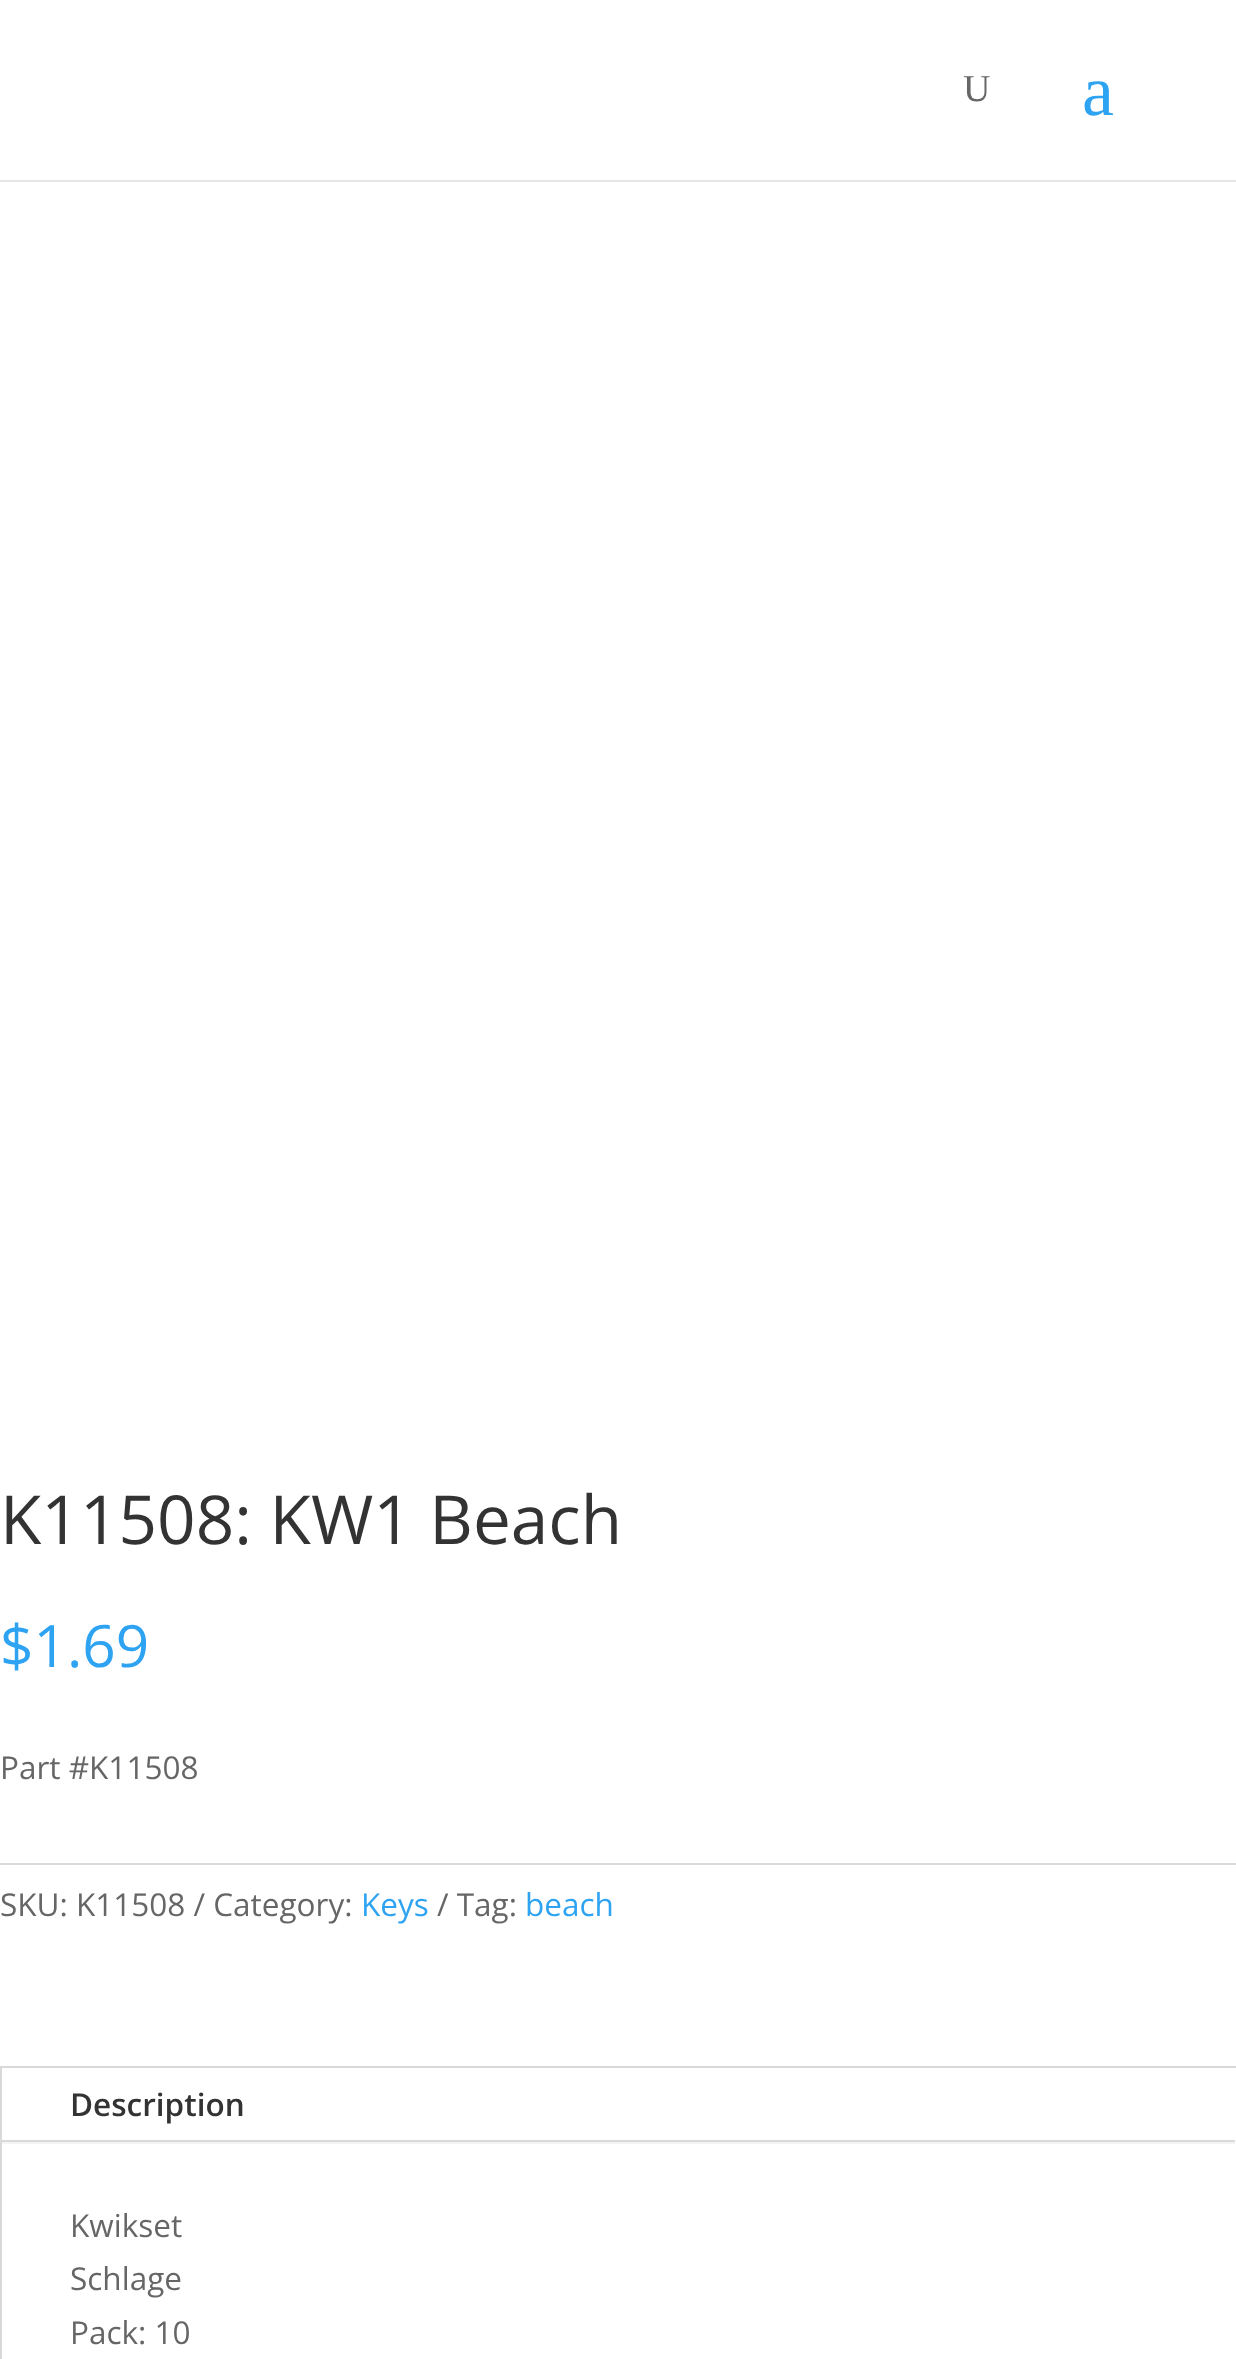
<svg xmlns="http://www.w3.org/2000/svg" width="1236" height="2359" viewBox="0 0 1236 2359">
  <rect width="100%" height="100%" fill="#fff"/>
  <path d="M0 180V182H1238V2V180Z" fill="#e6e6e6"/>
  <path d="M0 1863h1236v2H0z" fill="#dadada"/>
  <path d="M1 2067h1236v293H1z" fill="none" stroke="#d9d9d9" stroke-width="2"/>
  <path d="M2 2142h1233v2H2z" fill="#f4f4f4"/>
  <path d="M2 2140h1233v2H2z" fill="#d9d9d9"/>
  <text x="963" y="101" font-family="Liberation Serif" font-size="38" fill="#666">U</text>
  <text x="1082" y="115" font-family="Liberation Serif" font-size="72" fill="#2ea3f2">a</text>
  <text x="0" y="1544" font-family="Open Sans" font-size="67.5" fill="#333">K11508: KW1 Beach</text>
  <text x="0" y="1667" font-family="Open Sans" font-size="58.5" fill="#2ea3f2">$1.69</text>
  <g font-family="Open Sans" font-size="31.5" fill="#666">
    <text x="0" y="1779">Part #K11508</text>
    <text x="0" y="1916">SKU: K11508 / Category:</text>
  </g>
  <text x="361" y="1916" font-family="Open Sans" font-size="31.5" fill="#2ea3f2">Keys</text>
  <text x="437" y="1916" font-family="Open Sans" font-size="31.5" fill="#666">/ Tag:</text>
  <text x="525" y="1916" font-family="Open Sans" font-size="31.5" fill="#2ea3f2">beach</text>
  <text x="70" y="2116" font-family="Open Sans" font-size="31.5" font-weight="600" fill="#333">Description</text>
  <g font-family="Open Sans" font-size="31.5" fill="#666">
    <text x="70" y="2237">Kwikset</text>
    <text x="70" y="2290">Schlage</text>
    <text x="70" y="2344">Pack: 10</text>
  </g>
</svg>
